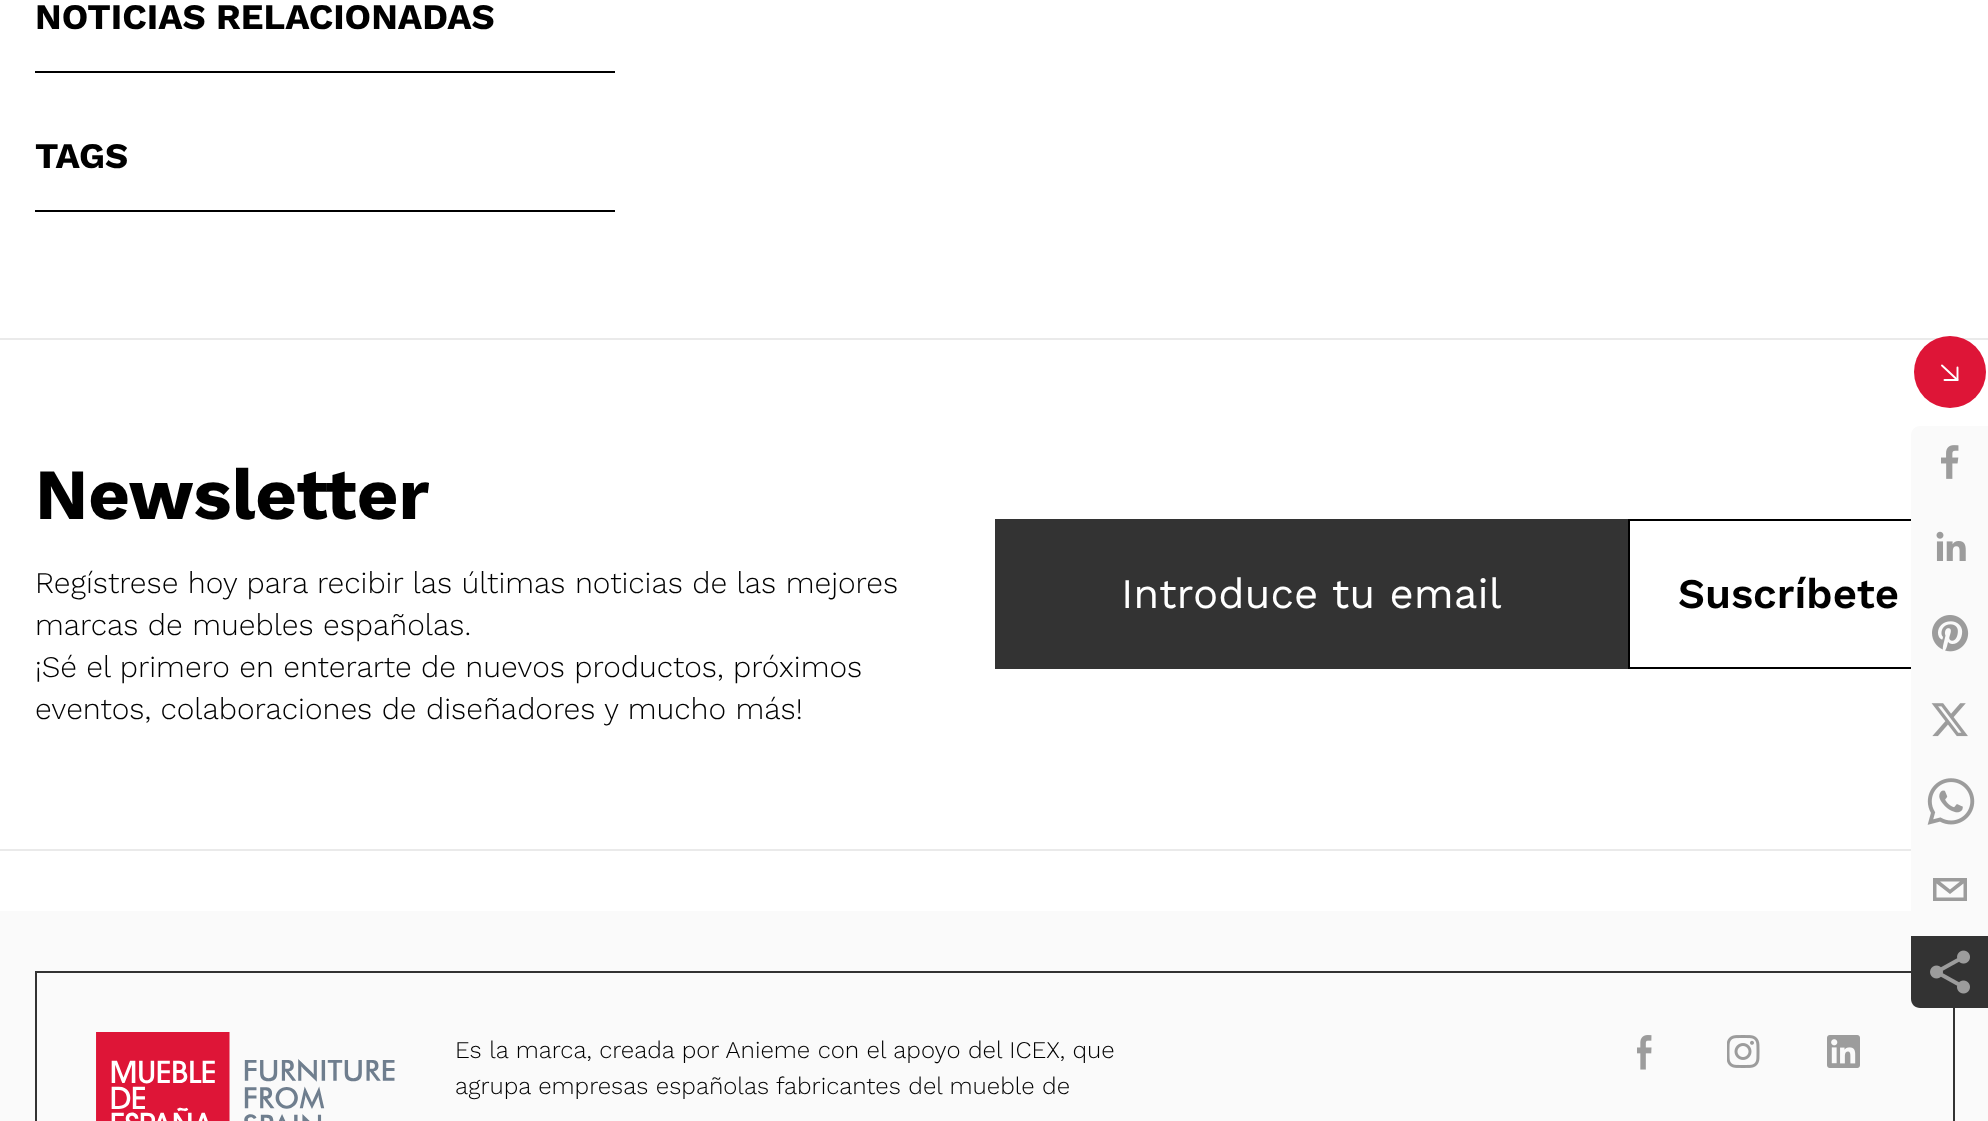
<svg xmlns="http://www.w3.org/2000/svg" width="1988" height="1121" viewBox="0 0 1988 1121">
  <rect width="100%" height="100%" fill="#fff"/>
  <path d="M35 71h580v2H35z" fill="#000"/>
  <path d="M35 210h580v2H35z" fill="#000"/>
  <path d="M0 338h1988v2H0z" fill="#eaeaea"/>
  <path d="M0 849h1911v2H0z" fill="#eaeaea"/>
  <path d="M995 519h633v150H995z" fill="#333"/>
  <path d="M1629 520h319v148H1629z" fill="none" stroke="#000" stroke-width="2"/>
  <circle cx="1950" cy="372" r="36" fill="#de1537"/>
  <path d="M1957.5 367.5V380H1944.5" fill="none" stroke="#fff" stroke-width="1.9" stroke-linecap="round" stroke-linejoin="round"/>
  <path d="M1957.5 380L1942 365.5" fill="none" stroke="#fff" stroke-width="1.9" stroke-linecap="round"/>
  <path d="M0 911h1988v210H0z" fill="#fafafa"/>
  <path d="M1920 426H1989V936H1911V435C1911 430 1915 426 1920 426Z" fill="#fafafa"/>
  <image x="1941" y="445" width="18" height="34" href="img/1.png"/>
  <image x="1936" y="531" width="30" height="30" href="img/2.png"/>
  <image x="1932" y="615" width="37" height="37" href="img/3.png"/>
  <image x="1931" y="703" width="37" height="34" href="img/4.png"/>
  <image x="1927" y="778" width="48" height="47" href="img/5.png"/>
  <path d="M1933 878V901H1967V878ZM1960 881.5L1950 889.5L1940 881.5ZM1936.5 897.5V883.5L1950 894L1963.5 883.5V897.5Z" fill="#9c9c9c"/>
  <path d="M36 972h1918v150H36z" fill="none" stroke="#333" stroke-width="2"/>
  <path d="M1911 936H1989V1008H1920C1915 1008 1911 1004 1911 999Z" fill="#333"/>
  <image x="1930" y="950" width="40" height="44" href="img/6.png"/>
  <image x="96" y="1032" width="299" height="89" href="img/7.png"/>
  <image x="1637" y="1035" width="15" height="35" href="img/8.png"/>
  <image x="1727" y="1035" width="33" height="33" href="img/9.png"/>
  <image x="1827" y="1035" width="33" height="33" href="img/10.png"/>
  <g font-family="Work Sans" font-size="36" font-weight="bold" fill="#000">
    <text x="35" y="29">NOTICIAS RELACIONADAS</text>
    <text x="35" y="168">TAGS</text>
  </g>
  <text x="35" y="519" font-family="Work Sans" font-size="72" font-weight="bold" fill="#000">Newsletter</text>
  <g font-family="Work Sans" font-size="30" font-weight="300" fill="#000">
    <text x="35" y="593">Regístrese hoy para recibir las últimas noticias de las mejores</text>
    <text x="35" y="635">marcas de muebles españolas.</text>
    <text x="35" y="677">¡Sé el primero en enterarte de nuevos productos, próximos</text>
    <text x="35" y="719">eventos, colaboraciones de diseñadores y mucho más!</text>
  </g>
  <text x="1121" y="608" font-family="Work Sans" font-size="42" fill="#fff">Introduce tu email</text>
  <text x="1678" y="608" font-family="Work Sans" font-size="42" font-weight="600" fill="#000">Suscríbete</text>
  <g font-family="Work Sans" font-size="24" font-weight="300" fill="#000">
    <text x="455" y="1058">Es la marca, creada por Anieme con el apoyo del ICEX, que</text>
    <text x="455" y="1094">agrupa empresas españolas fabricantes del mueble de</text>
  </g>
</svg>
